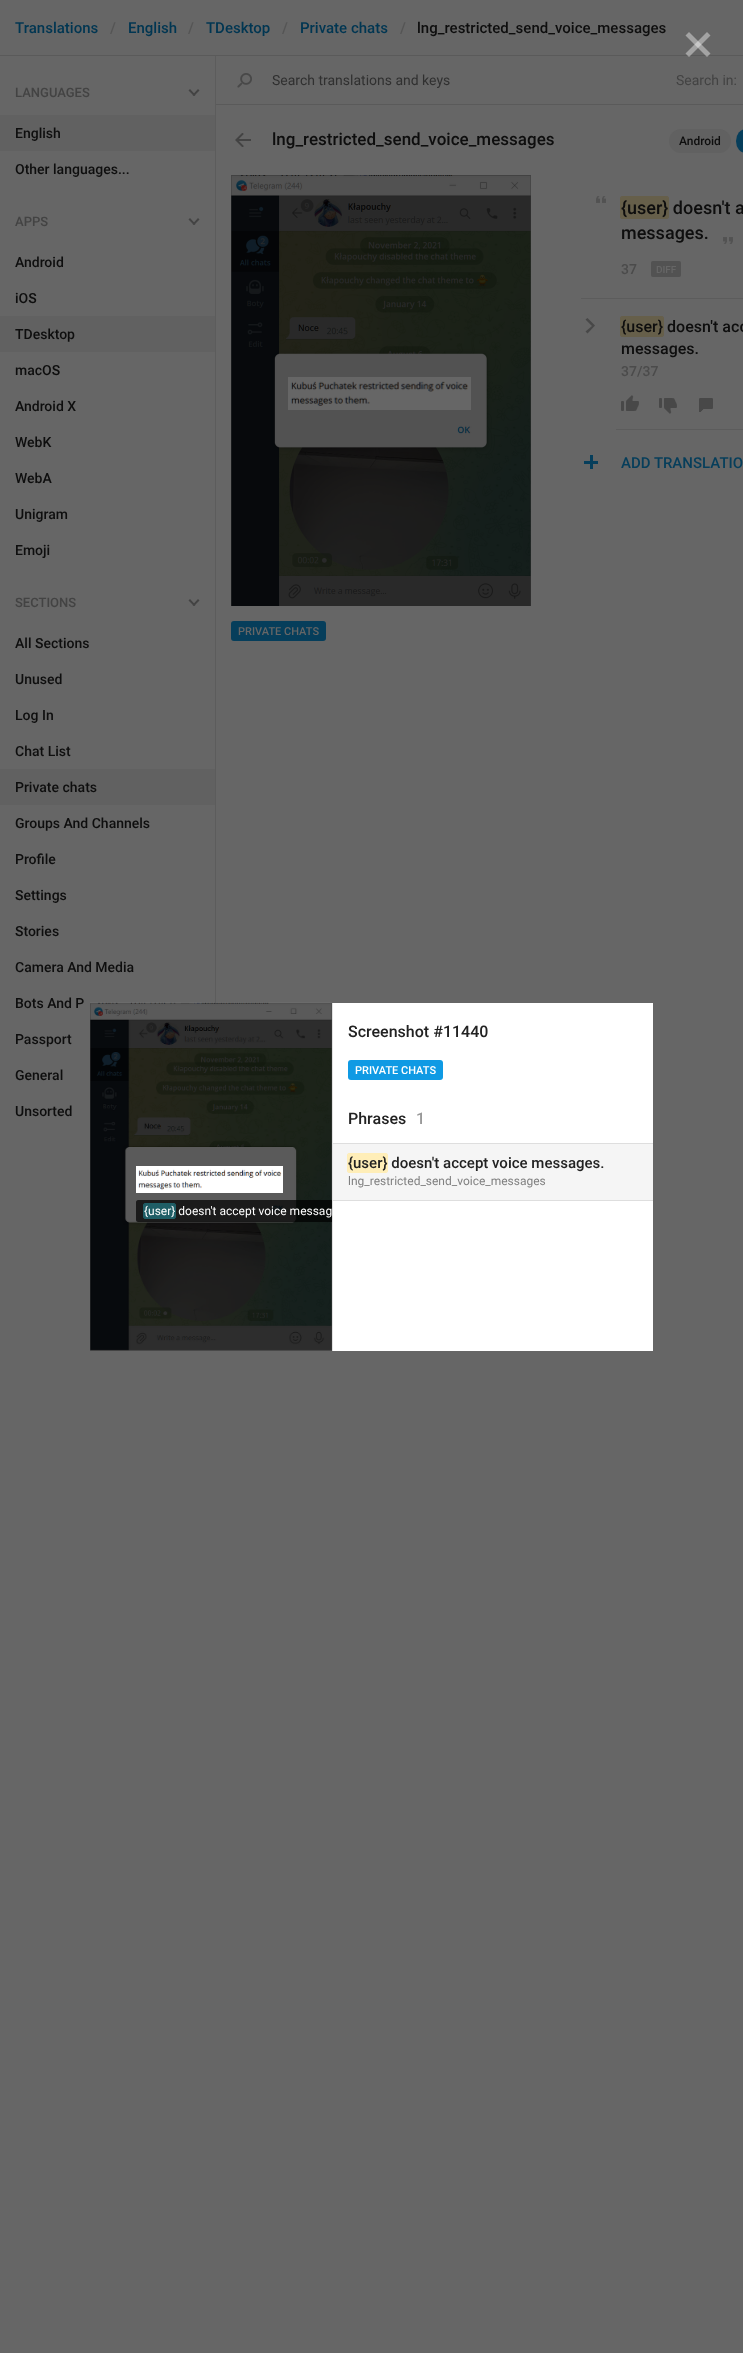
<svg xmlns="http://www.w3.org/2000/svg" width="743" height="2353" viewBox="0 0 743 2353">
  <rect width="100%" height="100%" fill="#666"/>
  <path d="M0 55h743v1H0z" fill="#5a5a5a"/>
  <path d="M216 104h527v1H216z" fill="#5a5a5a"/>
  <image x="237" y="73" width="15" height="15" href="img/1.png"/>
  <path d="M194 96L188.5 90.5L190 89L195.5 95Z" fill="#434343"/>
  <path d="M194 96L192.5 95L198 89L199.5 90.5Z" fill="#434343"/>
  <path d="M0 115h215v36H0z" fill="#616161"/>
  <path d="M194 225L188.5 219.5L190 218L195.5 224Z" fill="#434343"/>
  <path d="M194 225L192.5 224L198 218L199.5 219.5Z" fill="#434343"/>
  <path d="M0 316h215v36H0z" fill="#616161"/>
  <path d="M194 606L188.5 600.5L190 599L195.5 605Z" fill="#434343"/>
  <path d="M194 606L192.5 605L198 599L199.5 600.5Z" fill="#434343"/>
  <path d="M0 769h215v36H0z" fill="#616161"/>
  <path d="M215 56h1v947H215z" fill="#5c5c5c"/>
  <image x="235" y="133" width="16" height="14" href="img/2.png"/>
  <rect x="669" y="129" width="62" height="24" rx="12" fill="#616161"/>
  <rect x="736" y="129" width="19" height="24" rx="12" fill="#063e5b"/>
  <image x="596" y="196" width="10" height="7" href="img/3.png"/>
  <rect x="620.5" y="196.5" width="48" height="22" rx="1.5" fill="none" stroke="#665f4a"/>
  <rect x="621" y="197" width="47" height="21" rx="1" fill="#665f4a"/>
  <image x="723" y="237" width="10" height="7" href="img/4.png"/>
  <rect x="651" y="261" width="30" height="16" rx="2" fill="#525252"/>
  <path d="M581 298h162v1H581z" fill="#5c5c5c"/>
  <path d="M616 429V430H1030V300H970V429Z" fill="#5c5c5c"/>
  <path d="M592 326L585.5 331.5L587.5 333.5L595 325.5L587.5 318L585.5 319.5Z" fill="#484848"/>
  <rect x="620.5" y="316.5" width="43" height="20" rx="1.5" fill="none" stroke="#665f4a"/>
  <rect x="621" y="317" width="42" height="19" rx="1" fill="#665f4a"/>
  <image x="621" y="395" width="18" height="16" href="img/5.png"/>
  <image x="659" y="398" width="18" height="16" href="img/6.png"/>
  <image x="699" y="398" width="14" height="14" href="img/7.png"/>
  <path d="M584 461h14v3H584z" fill="#063e5b"/>
  <path d="M590 455h3v14H590z" fill="#063e5b"/>
  <image x="231" y="175" width="300" height="431" href="img/8.png"/>
  <image x="288" y="377" width="183" height="33" href="img/9.png"/>
  <rect x="231" y="621" width="95" height="20" rx="3" fill="#063e5b"/>
  <path d="M689 32L710.5 53.5L707 57L685.5 35.5Z" fill="#ffffff66"/>
  <path d="M685.5 53.5L707 32L710.5 35.5L689 57Z" fill="#ffffff66"/>
  <path d="M90 1003h243v348H90z" fill="#e0e0e0"/>
  <image x="90" y="1002" width="242" height="349" href="img/10.png"/>
  <path d="M333 1003h320v348H333z" fill="#fff"/>
  <rect x="348" y="1060" width="95" height="20" rx="3" fill="#0f9ae4"/>
  <path d="M333 1144h320v56H333z" fill="#f5f5f5"/>
  <path d="M333 1143h320v1H333z" fill="#dedede"/>
  <path d="M333 1200h320v1H333z" fill="#dedede"/>
  <rect x="347.5" y="1153.5" width="40" height="19" rx="1.5" fill="none" stroke="#ffeeb8"/>
  <rect x="348" y="1154" width="39" height="18" rx="1" fill="#ffeeb8"/>
  <path d="M90 1003h242v348H90z" fill="#00000033"/>
  <path d="M90 1003h242v348H90z" fill="#0000008f"/>
  <image x="136" y="1166" width="147" height="27" href="img/11.png"/>
  <path d="M138 1200H332V1222H138C137 1222 136 1221 136 1220V1202C136 1201 137 1200 138 1200Z" fill="#000000b3"/>
  <rect x="143.5" y="1203.5" width="32" height="15" rx="1.5" fill="none" stroke="#1f5e66"/>
  <rect x="144" y="1204" width="31" height="14" rx="1" fill="#217b86b3"/>
  <text x="15" y="33" font-family="Roboto" font-size="15" font-weight="500" fill="#003652">Translations</text>
  <text x="110" y="33" font-family="Roboto" font-size="15" font-weight="500" fill="#555">/</text>
  <text x="128" y="33" font-family="Roboto" font-size="15" font-weight="500" fill="#003652">English</text>
  <text x="188" y="33" font-family="Roboto" font-size="15" font-weight="500" fill="#555">/</text>
  <text x="206" y="33" font-family="Roboto" font-size="15" font-weight="500" fill="#003652">TDesktop</text>
  <text x="282" y="33" font-family="Roboto" font-size="15" font-weight="500" fill="#555">/</text>
  <text x="300" y="33" font-family="Roboto" font-size="15" font-weight="500" fill="#003652">Private chats</text>
  <text x="400" y="33" font-family="Roboto" font-size="15" font-weight="500" fill="#555">/</text>
  <text x="417" y="33" font-family="Roboto" font-size="15" font-weight="500" fill="#0e0e0e">lng_restricted_send_voice_messages</text>
  <text x="272" y="85" font-family="Roboto" font-size="14" fill="#303030">Search translations and keys</text>
  <text x="676" y="85" font-family="Roboto" font-size="14" fill="#434343">Search in:</text>
  <text x="15" y="97" font-family="Roboto" font-size="13" font-weight="500" fill="#434343">LANGUAGES</text>
  <g font-family="Roboto" font-size="14" font-weight="500" fill="#0e0e0e">
    <text x="15" y="138">English</text>
    <text x="15" y="174">Other languages...</text>
  </g>
  <text x="15" y="226" font-family="Roboto" font-size="13" font-weight="500" fill="#434343">APPS</text>
  <g font-family="Roboto" font-size="14" font-weight="500" fill="#0e0e0e">
    <text x="15" y="267">Android</text>
    <text x="15" y="303">iOS</text>
    <text x="15" y="339">TDesktop</text>
    <text x="15" y="375">macOS</text>
    <text x="15" y="411">Android X</text>
    <text x="15" y="447">WebK</text>
    <text x="15" y="483">WebA</text>
    <text x="15" y="519">Unigram</text>
    <text x="15" y="555">Emoji</text>
  </g>
  <text x="15" y="607" font-family="Roboto" font-size="13" font-weight="500" fill="#434343">SECTIONS</text>
  <g font-family="Roboto" font-size="14" font-weight="500" fill="#0e0e0e">
    <text x="15" y="648">All Sections</text>
    <text x="15" y="684">Unused</text>
    <text x="15" y="720">Log In</text>
    <text x="15" y="756">Chat List</text>
    <text x="15" y="792">Private chats</text>
    <text x="15" y="828">Groups And Channels</text>
    <text x="15" y="864">Profile</text>
    <text x="15" y="900">Settings</text>
    <text x="15" y="936">Stories</text>
    <text x="15" y="972">Camera And Media</text>
    <text x="15" y="1008">Bots And P</text>
    <text x="15" y="1044">Passport</text>
    <text x="15" y="1080">General</text>
    <text x="15" y="1116">Unsorted</text>
  </g>
  <text x="272" y="145" font-family="Roboto" font-size="17" font-weight="500" fill="#0e0e0e">lng_restricted_send_voice_messages</text>
  <text x="679" y="145" font-family="Roboto" font-size="12" font-weight="500" fill="#0e0e0e">Android</text>
  <g font-family="Roboto" font-size="18" font-weight="500" fill="#0e0e0e">
    <text x="621" y="214">{user} doesn't a</text>
    <text x="621" y="239">messages.</text>
  </g>
  <text x="621" y="274" font-family="Roboto" font-size="14" font-weight="500" fill="#4b4b4b">37</text>
  <text x="656" y="273" font-family="Roboto" font-size="10" font-weight="500" fill="#666">DIFF</text>
  <g font-family="Roboto" font-size="16" font-weight="500" fill="#0e0e0e">
    <text x="621" y="332">{user} doesn't acc</text>
    <text x="621" y="354">messages.</text>
  </g>
  <text x="621" y="376" font-family="Roboto" font-size="14" font-weight="500" fill="#4b4b4b">37/37</text>
  <text x="621" y="468" font-family="Roboto" font-size="15" font-weight="500" fill="#063e5b">ADD TRANSLATIO</text>
  <text x="238" y="635" font-family="Roboto" font-size="11" font-weight="500" fill="#666">PRIVATE CHATS</text>
  <text x="348" y="1037" font-family="Roboto" font-size="16" font-weight="500" fill="#222">Screenshot #11440</text>
  <text x="355" y="1074" font-family="Roboto" font-size="11" font-weight="500" fill="#fff">PRIVATE CHATS</text>
  <text x="348" y="1124" font-family="Roboto" font-size="16" font-weight="500" fill="#222">Phrases</text>
  <text x="416" y="1124" font-family="Roboto" font-size="16" font-weight="500" fill="#999">1</text>
  <text x="348" y="1168" font-family="Roboto" font-size="15" font-weight="500" fill="#222">{user} doesn't accept voice messages.</text>
  <text x="348" y="1185" font-family="Roboto" font-size="12" fill="#808080">lng_restricted_send_voice_messages</text>
  <text x="144" y="1215" font-family="Roboto" font-size="12" fill="#fff">{user} doesn't accept voice messag</text>
</svg>
